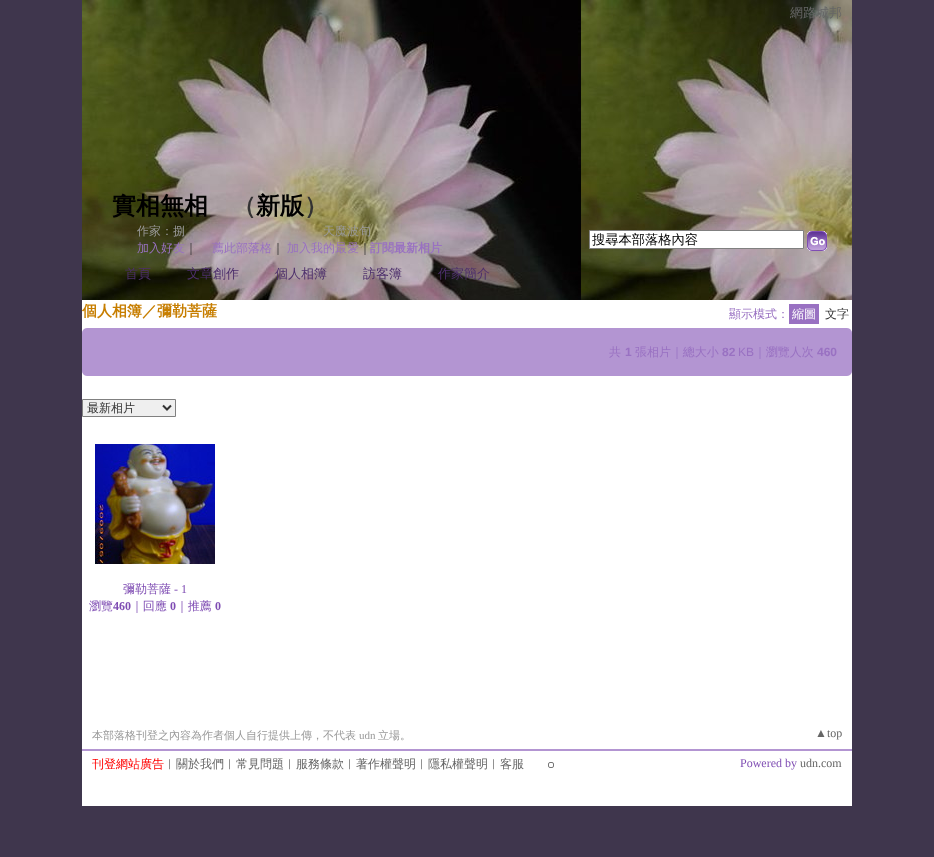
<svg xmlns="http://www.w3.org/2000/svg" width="934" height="857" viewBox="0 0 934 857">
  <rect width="100%" height="100%" fill="#3f364d"/>
  <path d="M82 300h770v449H82z" fill="#fff"/>
  <image x="82" y="0" width="770" height="300" href="img/1.png"/>
  <path d="M589.5 230.5h214v18H589.5z" fill="#fff" stroke="#808080"/>
  <image x="807" y="231" width="20" height="20" href="img/2.png"/>
  <path d="M789 304h30v20H789z" fill="#9971c2"/>
  <image x="82" y="328" width="5" height="5" href="img/3.png"/>
  <path d="M87 328h760v5H87z" fill="#b395d2"/>
  <image x="847" y="328" width="5" height="5" href="img/4.png"/>
  <path d="M82 333h770v38H82z" fill="#b395d2"/>
  <image x="82" y="371" width="5" height="5" href="img/5.png"/>
  <path d="M87 371h760v5H87z" fill="#b395d2"/>
  <image x="847" y="371" width="5" height="5" href="img/6.png"/>
  <path d="M82.5 399.5h93v17H82.5z" fill="#efefef" stroke="#808080"/>
  <path d="M163 405.5L167 409.5L171 405.5" fill="none" stroke="#333" stroke-width="2"/>
  <image x="95" y="444" width="120" height="120" href="img/7.png"/>
  <path d="M82 751h770v55H82z" fill="#fff"/>
  <path d="M82 749h770v2H82z" fill="#b395d2"/>
  <rect x="548.5" y="762.5" width="5" height="5" rx="1.5" fill="none" stroke="#767676"/>
  <text x="790" y="17" font-family="WenQuanYi Zen Hei" font-size="13" font-weight="500" fill="#666">網路城邦</text>
  <text x="112" y="214" font-family="WenQuanYi Zen Hei" font-size="24" font-weight="bold" fill="#000">實相無相</text>
  <text x="232" y="214" font-family="WenQuanYi Zen Hei" font-size="24" font-weight="bold" fill="#333">（</text>
  <text x="256" y="214" font-family="WenQuanYi Zen Hei" font-size="24" font-weight="bold" fill="#000">新版</text>
  <text x="304" y="214" font-family="WenQuanYi Zen Hei" font-size="24" font-weight="bold" fill="#333">）</text>
  <g font-family="WenQuanYi Zen Hei" font-size="12" font-weight="500" fill="#999">
    <text x="137" y="235" word-spacing="-1">作家：捌</text>
    <text x="323" y="235" word-spacing="-1">天魔波旬</text>
  </g>
  <text x="592" y="244" font-family="WenQuanYi Zen Hei" font-size="13.25" font-weight="500" fill="#000">搜尋本部落格內容</text>
  <text x="137" y="252" font-family="WenQuanYi Zen Hei" font-size="12" font-weight="500" fill="#9971c2">加入好友</text>
  <text x="185" y="252" font-family="WenQuanYi Zen Hei" font-size="12" font-weight="500" fill="#333">｜</text>
  <text x="212" y="252" font-family="WenQuanYi Zen Hei" font-size="12" font-weight="500" fill="#9971c2">薦此部落格</text>
  <text x="272" y="252" font-family="WenQuanYi Zen Hei" font-size="12" font-weight="500" fill="#333">｜</text>
  <text x="287" y="252" font-family="WenQuanYi Zen Hei" font-size="12" font-weight="500" fill="#9971c2">加入我的最愛</text>
  <text x="359" y="252" font-family="WenQuanYi Zen Hei" font-size="12" font-weight="500" fill="#333">｜</text>
  <text x="370" y="252" font-family="WenQuanYi Zen Hei" font-size="12" font-weight="bold" fill="#9971c2">訂閱最新相片</text>
  <g font-family="WenQuanYi Zen Hei" font-size="13" font-weight="500" fill="#4d2f6c">
    <text x="125" y="278">首頁</text>
    <text x="187" y="278">文章創作</text>
    <text x="275" y="278">個人相簿</text>
    <text x="363" y="278">訪客簿</text>
    <text x="438" y="278">作家簡介</text>
  </g>
  <text x="82" y="316" font-family="WenQuanYi Zen Hei" font-size="15" font-weight="bold" fill="#c77e00">個人相簿／彌勒菩薩</text>
  <text x="729" y="318" font-family="WenQuanYi Zen Hei" font-size="12" font-weight="500" fill="#9971c2">顯示模式：</text>
  <text x="792" y="318" font-family="WenQuanYi Zen Hei" font-size="12" font-weight="500" fill="#fff">縮圖</text>
  <text x="825" y="318" font-family="WenQuanYi Zen Hei" font-size="12" font-weight="500" fill="#333">文字</text>
  <text x="609" y="356" font-family="WenQuanYi Zen Hei" font-size="12" font-weight="500" fill="#9971c2">共</text>
  <text x="625" y="356" font-family="Liberation Sans" font-size="12" font-weight="bold" fill="#9971c2">1</text>
  <text x="635" y="356" font-family="WenQuanYi Zen Hei" font-size="12" font-weight="500" fill="#9971c2">張相片｜總大小</text>
  <text x="722" y="356" font-family="Liberation Sans" font-size="12" font-weight="bold" fill="#9971c2">82</text>
  <text x="738" y="356" font-family="Liberation Sans" font-size="12" fill="#9971c2">KB</text>
  <text x="754" y="356" font-family="WenQuanYi Zen Hei" font-size="12" font-weight="500" fill="#9971c2">｜瀏覽人次</text>
  <text x="817" y="356" font-family="Liberation Sans" font-size="12" font-weight="bold" fill="#9971c2">460</text>
  <text x="87" y="412" font-family="WenQuanYi Zen Hei" font-size="12" font-weight="500" fill="#333">最新相片</text>
  <text x="123" y="593" font-family="WenQuanYi Zen Hei" font-size="12" font-weight="500" fill="#7f4db3">彌勒菩薩</text>
  <text x="174" y="593" font-family="Liberation Serif" font-size="12" fill="#7f4db3">- 1</text>
  <text x="89" y="610" font-family="WenQuanYi Zen Hei" font-size="12" font-weight="500" fill="#7f4db3">瀏覽</text>
  <text x="113" y="610" font-family="Liberation Serif" font-size="12" font-weight="bold" fill="#7f4db3">460</text>
  <text x="131" y="610" font-family="WenQuanYi Zen Hei" font-size="12" font-weight="500" fill="#7f4db3">｜回應</text>
  <text x="170" y="610" font-family="Liberation Serif" font-size="12" font-weight="bold" fill="#7f4db3">0</text>
  <text x="176" y="610" font-family="WenQuanYi Zen Hei" font-size="12" font-weight="500" fill="#7f4db3">｜推薦</text>
  <text x="215" y="610" font-family="Liberation Serif" font-size="12" font-weight="bold" fill="#7f4db3">0</text>
  <text x="92" y="739" font-family="WenQuanYi Zen Hei" font-size="11" font-weight="500" fill="#999">本部落格刊登之內容為作者個人自行提供上傳，不代表</text>
  <text x="359" y="739" font-family="Liberation Serif" font-size="11" fill="#999">udn</text>
  <text x="378" y="739" font-family="WenQuanYi Zen Hei" font-size="11" font-weight="500" fill="#999">立場。</text>
  <text x="815" y="737" font-family="Liberation Serif" font-size="12" fill="#666">▲top</text>
  <text x="92" y="768" font-family="WenQuanYi Zen Hei" font-size="12" font-weight="500" fill="#f00">刊登網站廣告</text>
  <text x="164" y="768" font-family="WenQuanYi Zen Hei" font-size="12" font-weight="500" fill="#333">︱</text>
  <text x="176" y="768" font-family="WenQuanYi Zen Hei" font-size="12" font-weight="500" fill="#666">關於我們</text>
  <text x="224" y="768" font-family="WenQuanYi Zen Hei" font-size="12" font-weight="500" fill="#333">︱</text>
  <text x="236" y="768" font-family="WenQuanYi Zen Hei" font-size="12" font-weight="500" fill="#666">常見問題</text>
  <text x="284" y="768" font-family="WenQuanYi Zen Hei" font-size="12" font-weight="500" fill="#333">︱</text>
  <text x="296" y="768" font-family="WenQuanYi Zen Hei" font-size="12" font-weight="500" fill="#666">服務條款</text>
  <text x="344" y="768" font-family="WenQuanYi Zen Hei" font-size="12" font-weight="500" fill="#333">︱</text>
  <text x="356" y="768" font-family="WenQuanYi Zen Hei" font-size="12" font-weight="500" fill="#666">著作權聲明</text>
  <text x="416" y="768" font-family="WenQuanYi Zen Hei" font-size="12" font-weight="500" fill="#333">︱</text>
  <text x="428" y="768" font-family="WenQuanYi Zen Hei" font-size="12" font-weight="500" fill="#666">隱私權聲明</text>
  <text x="488" y="768" font-family="WenQuanYi Zen Hei" font-size="12" font-weight="500" fill="#333">︱</text>
  <text x="500" y="768" font-family="WenQuanYi Zen Hei" font-size="12" font-weight="500" fill="#666">客服</text>
  <text x="740" y="767" font-family="Liberation Serif" font-size="12" fill="#7f4db3">Powered by</text>
  <text x="800" y="767" font-family="Liberation Serif" font-size="12" fill="#666">udn.com</text>
</svg>
